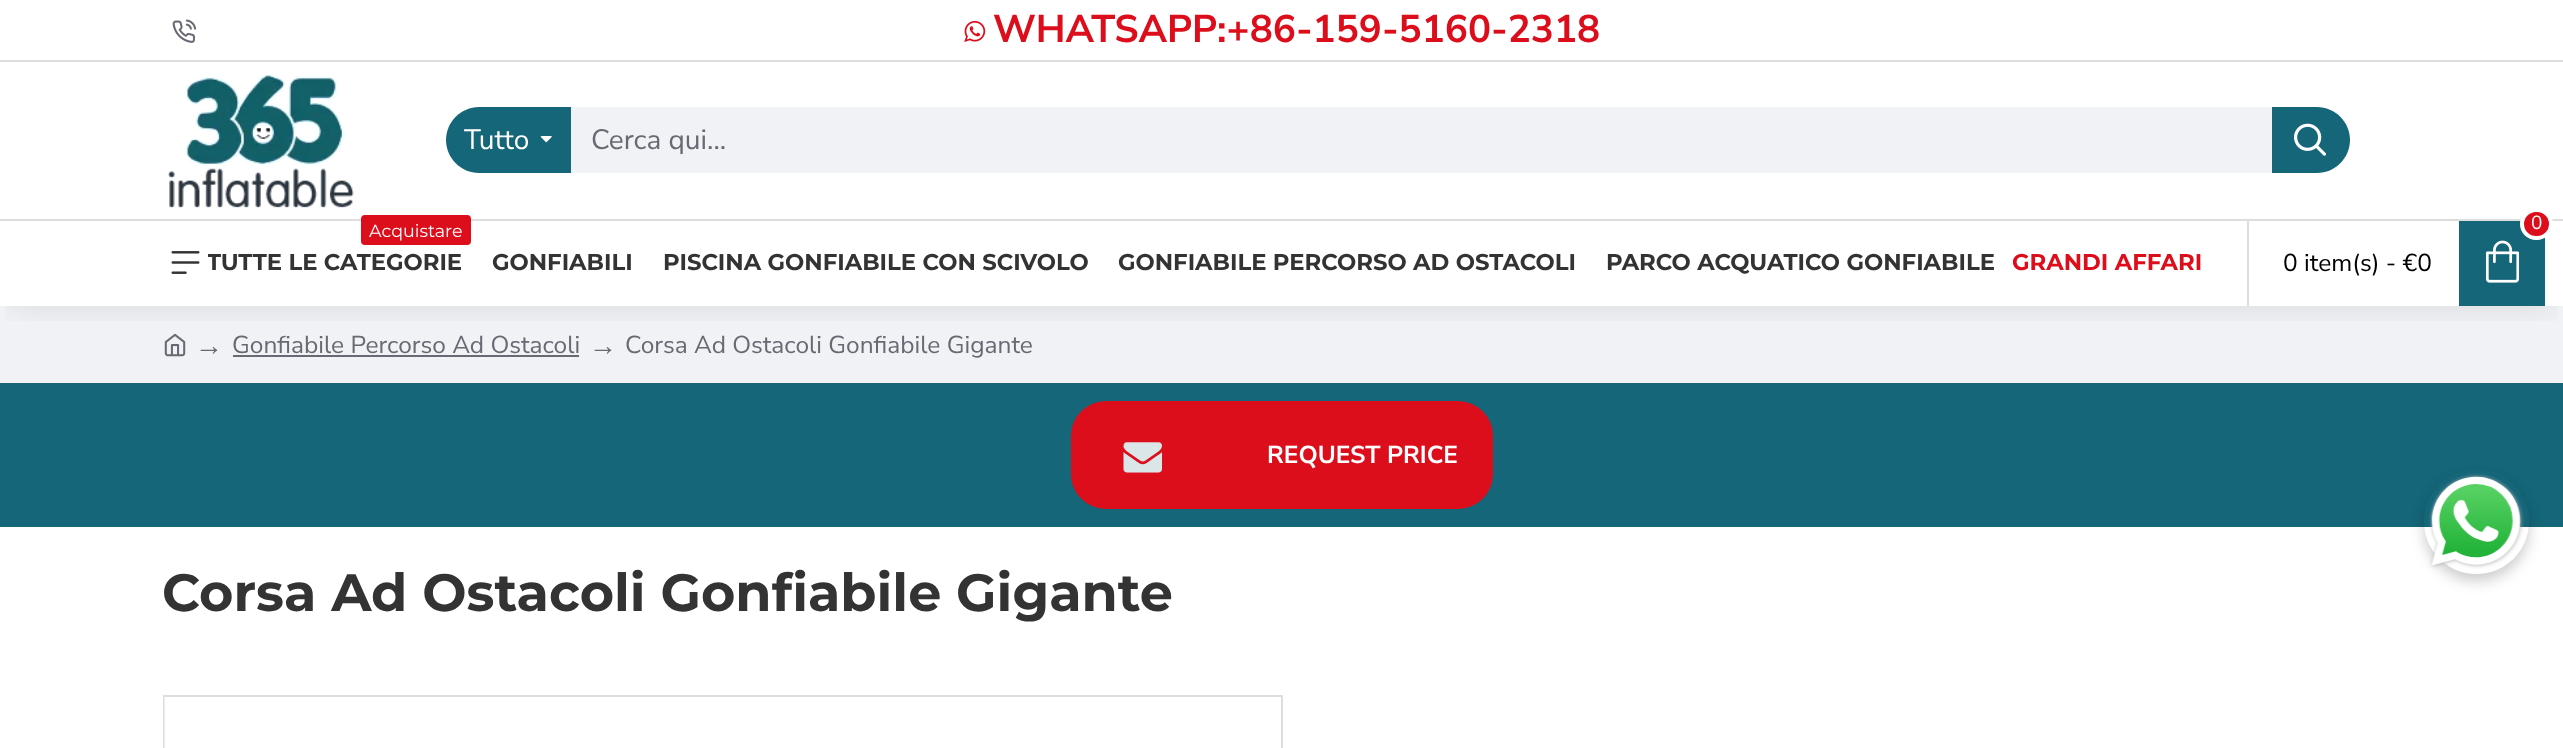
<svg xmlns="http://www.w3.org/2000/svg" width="2563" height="748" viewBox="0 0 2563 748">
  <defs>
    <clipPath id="clip1"><path d="M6 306h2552v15H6z"/></clipPath>
    <clipPath id="clip2"><path d="M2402 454H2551V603H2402ZM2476.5 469C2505.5 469 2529 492.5 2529 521.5C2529 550.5 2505.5 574 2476.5 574C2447.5 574 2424 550.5 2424 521.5C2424 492.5 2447.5 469 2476.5 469Z" clip-rule="evenodd"/></clipPath>
    <clipPath id="clip3"><path d="M208 245h254v35H208z"/></clipPath>
  </defs>
  <rect width="100%" height="100%" fill="#fff"/>
  <path d="M0 306h2563v77H0z" fill="#f0f2f5"/>
  <image x="164" y="333" width="22" height="24" href="img/8.png"/>
  <path d="M233 355h346v2H233z" fill="#696973"/>
  <g clip-path="url(#clip1)">
    <path d="M9 18h2546v288H9z" fill="#0000001a" filter="blur(17.5px)"/>
  </g>
  <image x="172" y="19" width="25" height="24" href="img/1.png"/>
  <image x="964" y="20" width="22" height="22" href="img/2.png"/>
  <image x="167" y="74" width="187" height="134" href="img/3.png"/>
  <path d="M479 107H571V173H479C461 173 446 158 446 140C446 122 461 107 479 107Z" fill="#146678"/>
  <image x="540" y="136" width="12" height="7" href="img/4.png"/>
  <path d="M571 107h1701v66H571z" fill="#f0f2f5"/>
  <path d="M2272 107H2317C2335 107 2350 122 2350 140C2350 158 2335 173 2317 173H2272Z" fill="#146678"/>
  <image x="2293" y="123" width="33" height="33" href="img/5.png"/>
  <path d="M0 219h2563v2H0z" fill="#ddd"/>
  <path d="M2247 219h2v87H2247z" fill="#ddd"/>
  <path d="M2459 221h86v85H2459z" fill="#146678"/>
  <rect x="2522" y="210" width="29" height="28" rx="14" fill="#dd0e1c" stroke="#fff" stroke-width="4"/>
  <image x="2485" y="240" width="35" height="43" href="img/6.png"/>
  <rect x="361" y="215" width="110" height="30" rx="4" fill="#dd0e1c"/>
  <image x="171" y="251" width="29" height="23" href="img/7.png"/>
  <path d="M0 60h2563v2H0z" fill="#ddd"/>
  <path d="M0 383h2563v144H0z" fill="#146678"/>
  <rect x="1071" y="401" width="422" height="108" rx="35" fill="#dd0e1c"/>
  <image x="1123" y="442" width="39" height="31" href="img/9.png"/>
  <path d="M164 696h1118v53H164z" fill="none" stroke="#ddd" stroke-width="2"/>
  <path d="M164 697h1v51H164z" fill="#ececec"/>
  <g clip-path="url(#clip2)">
    <rect x="2424" y="476" width="105" height="105" rx="52.5" fill="#00000033" filter="blur(7px)"/>
  </g>
  <image x="2428" y="473" width="97" height="96" href="img/10.png"/>
  <text x="993" y="42" font-family="Nunito Sans" font-size="38.5" font-weight="bold" fill="#dd0e1c">WHATSAPP:+86-159-5160-2318</text>
  <text x="464" y="149" font-family="Nunito Sans" font-size="28" fill="#fff">Tutto</text>
  <text x="591" y="149" font-family="Nunito Sans" font-size="28" fill="#696973">Cerca qui...</text>
  <text x="2531" y="229" font-family="Nunito Sans" font-size="19" fill="#fff">0</text>
  <text x="2283" y="271" font-family="Nunito Sans" font-size="24.5" fill="#000">0 item(s) - €0</text>
  <text x="369" y="237" font-family="Montserrat" font-size="17.5" fill="#fff">Acquistare</text>
  <g clip-path="url(#clip3)">
    <text x="207" y="270" font-family="Montserrat" font-size="22.75" font-weight="bold" fill="#333">TUTTE LE CATEGORIE</text>
  </g>
  <g font-family="Montserrat" font-size="22.75" font-weight="bold" fill="#333">
    <text x="492" y="270">GONFIABILI</text>
    <text x="663" y="270">PISCINA GONFIABILE CON SCIVOLO</text>
    <text x="1118" y="270">GONFIABILE PERCORSO AD OSTACOLI</text>
    <text x="1606" y="270">PARCO ACQUATICO GONFIABILE</text>
  </g>
  <text x="2012" y="270" font-family="Montserrat" font-size="22.75" font-weight="bold" fill="#dd0e1c">GRANDI AFFARI</text>
  <text x="195" y="355" font-family="Liberation Serif" font-size="28" fill="#696973">→</text>
  <text x="232" y="353" font-family="Nunito Sans" font-size="24.5" fill="#696973">Gonfiabile Percorso Ad Ostacoli</text>
  <text x="589" y="355" font-family="Liberation Serif" font-size="28" fill="#696973">→</text>
  <text x="625" y="353" font-family="Nunito Sans" font-size="24.5" fill="#696973">Corsa Ad Ostacoli Gonfiabile Gigante</text>
  <text x="1267" y="463" font-family="Nunito Sans" font-size="24.5" font-weight="bold" fill="#fff">REQUEST PRICE</text>
  <text x="162" y="611" font-family="Montserrat" font-size="52.5" font-weight="bold" fill="#333">Corsa Ad Ostacoli Gonfiabile Gigante</text>
</svg>
